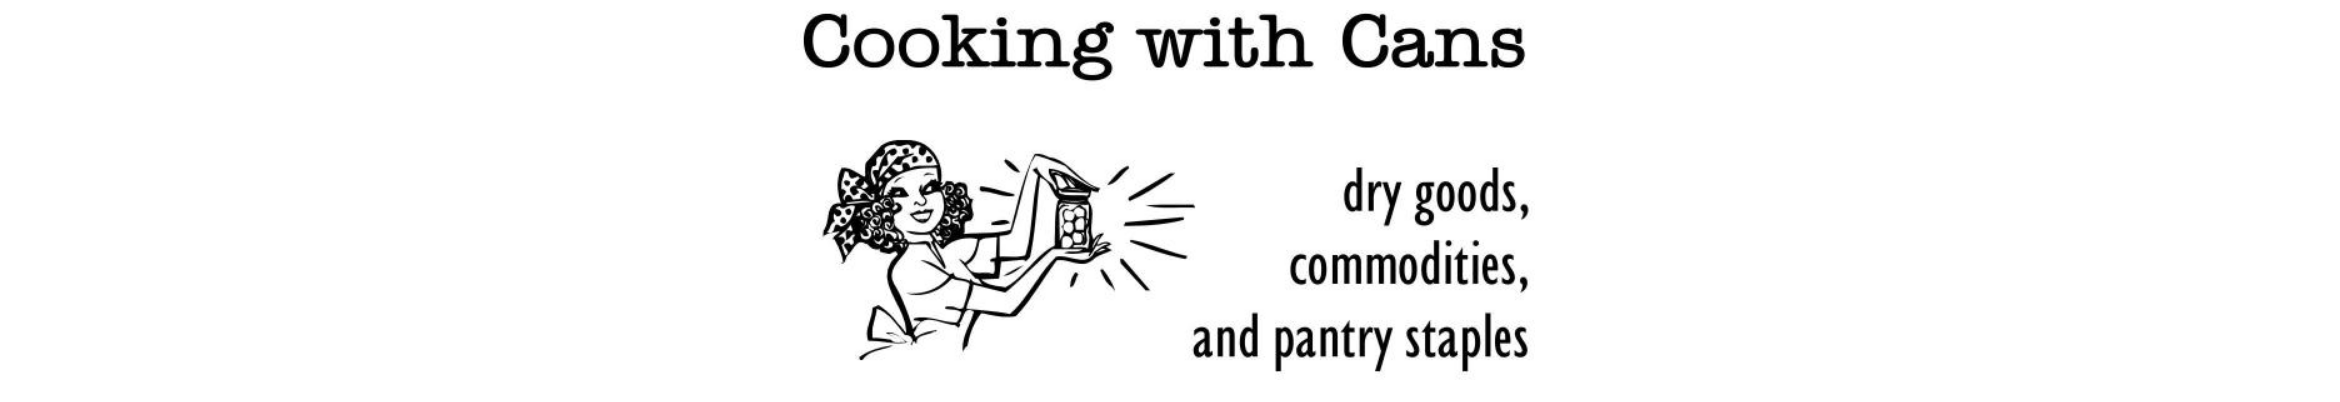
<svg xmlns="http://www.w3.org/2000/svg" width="2340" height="402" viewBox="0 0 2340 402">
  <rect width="100%" height="100%" fill="#fff"/>
  <image x="795" y="10" width="740" height="370" href="img/1.png"/>
</svg>
